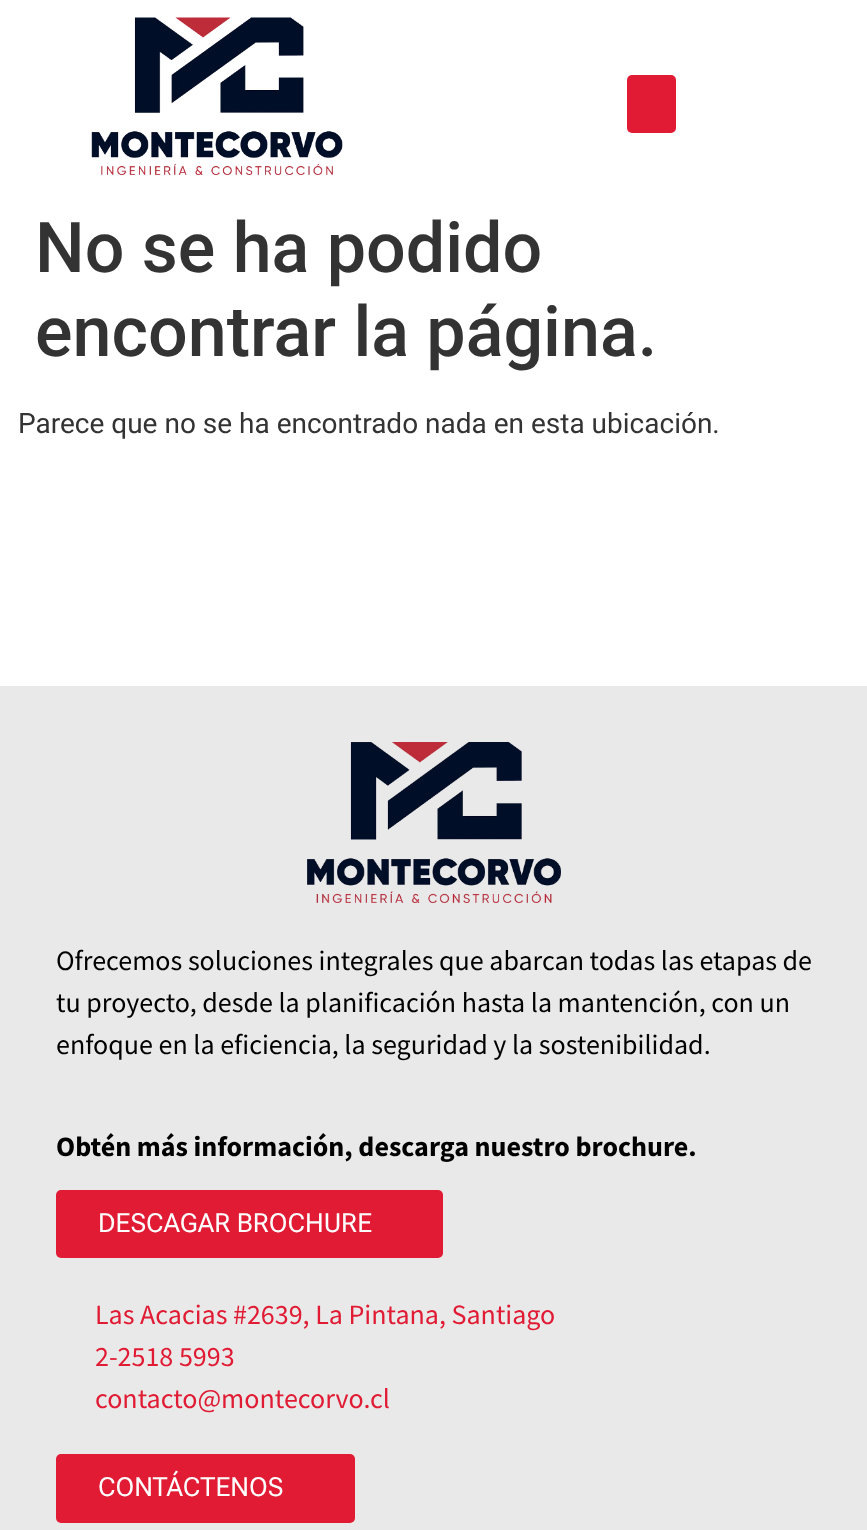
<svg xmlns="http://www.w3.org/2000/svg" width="867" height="1530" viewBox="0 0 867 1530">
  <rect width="100%" height="100%" fill="#fff"/>
  <image x="91" y="17" width="252" height="158" href="img/1.png"/>
  <rect x="627" y="75" width="49" height="58" rx="5" fill="#e01b33"/>
  <path d="M0 686h867v844H0z" fill="#e9e9e9"/>
  <image x="307" y="742" width="254" height="161" href="img/2.png"/>
  <rect x="56" y="1190" width="387" height="68" rx="5" fill="#e01b33"/>
  <rect x="56" y="1454" width="299" height="69" rx="5" fill="#e01b33"/>
  <g font-family="Roboto" font-size="70" font-weight="500" fill="#333">
    <text x="35" y="272">No se ha podido</text>
    <text x="35" y="356">encontrar la página.</text>
  </g>
  <text x="18" y="433" font-family="Roboto" font-size="28" fill="#333">Parece que no se ha encontrado nada en esta ubicación.</text>
  <g font-family="Source Sans Pro" font-size="28" fill="#000">
    <text x="56" y="970">Ofrecemos soluciones integrales que abarcan todas las etapas de</text>
    <text x="56" y="1012">tu proyecto, desde la planificación hasta la mantención, con un</text>
    <text x="56" y="1054">enfoque en la eficiencia, la seguridad y la sostenibilidad.</text>
  </g>
  <text x="56" y="1156" font-family="Source Sans Pro" font-size="28" font-weight="bold" fill="#000">Obtén más información, descarga nuestro brochure.</text>
  <text x="98" y="1232" font-family="Roboto Flex" font-size="26.25" fill="#fff">DESCAGAR BROCHURE</text>
  <g font-family="Source Sans Pro" font-size="28" fill="#e01b33">
    <text x="95" y="1324">Las Acacias #2639, La Pintana, Santiago</text>
    <text x="95" y="1366">2-2518 5993</text>
    <text x="95" y="1408">contacto@montecorvo.cl</text>
  </g>
  <text x="98" y="1496" font-family="Roboto Flex" font-size="26.25" fill="#fff">CONTÁCTENOS</text>
</svg>
